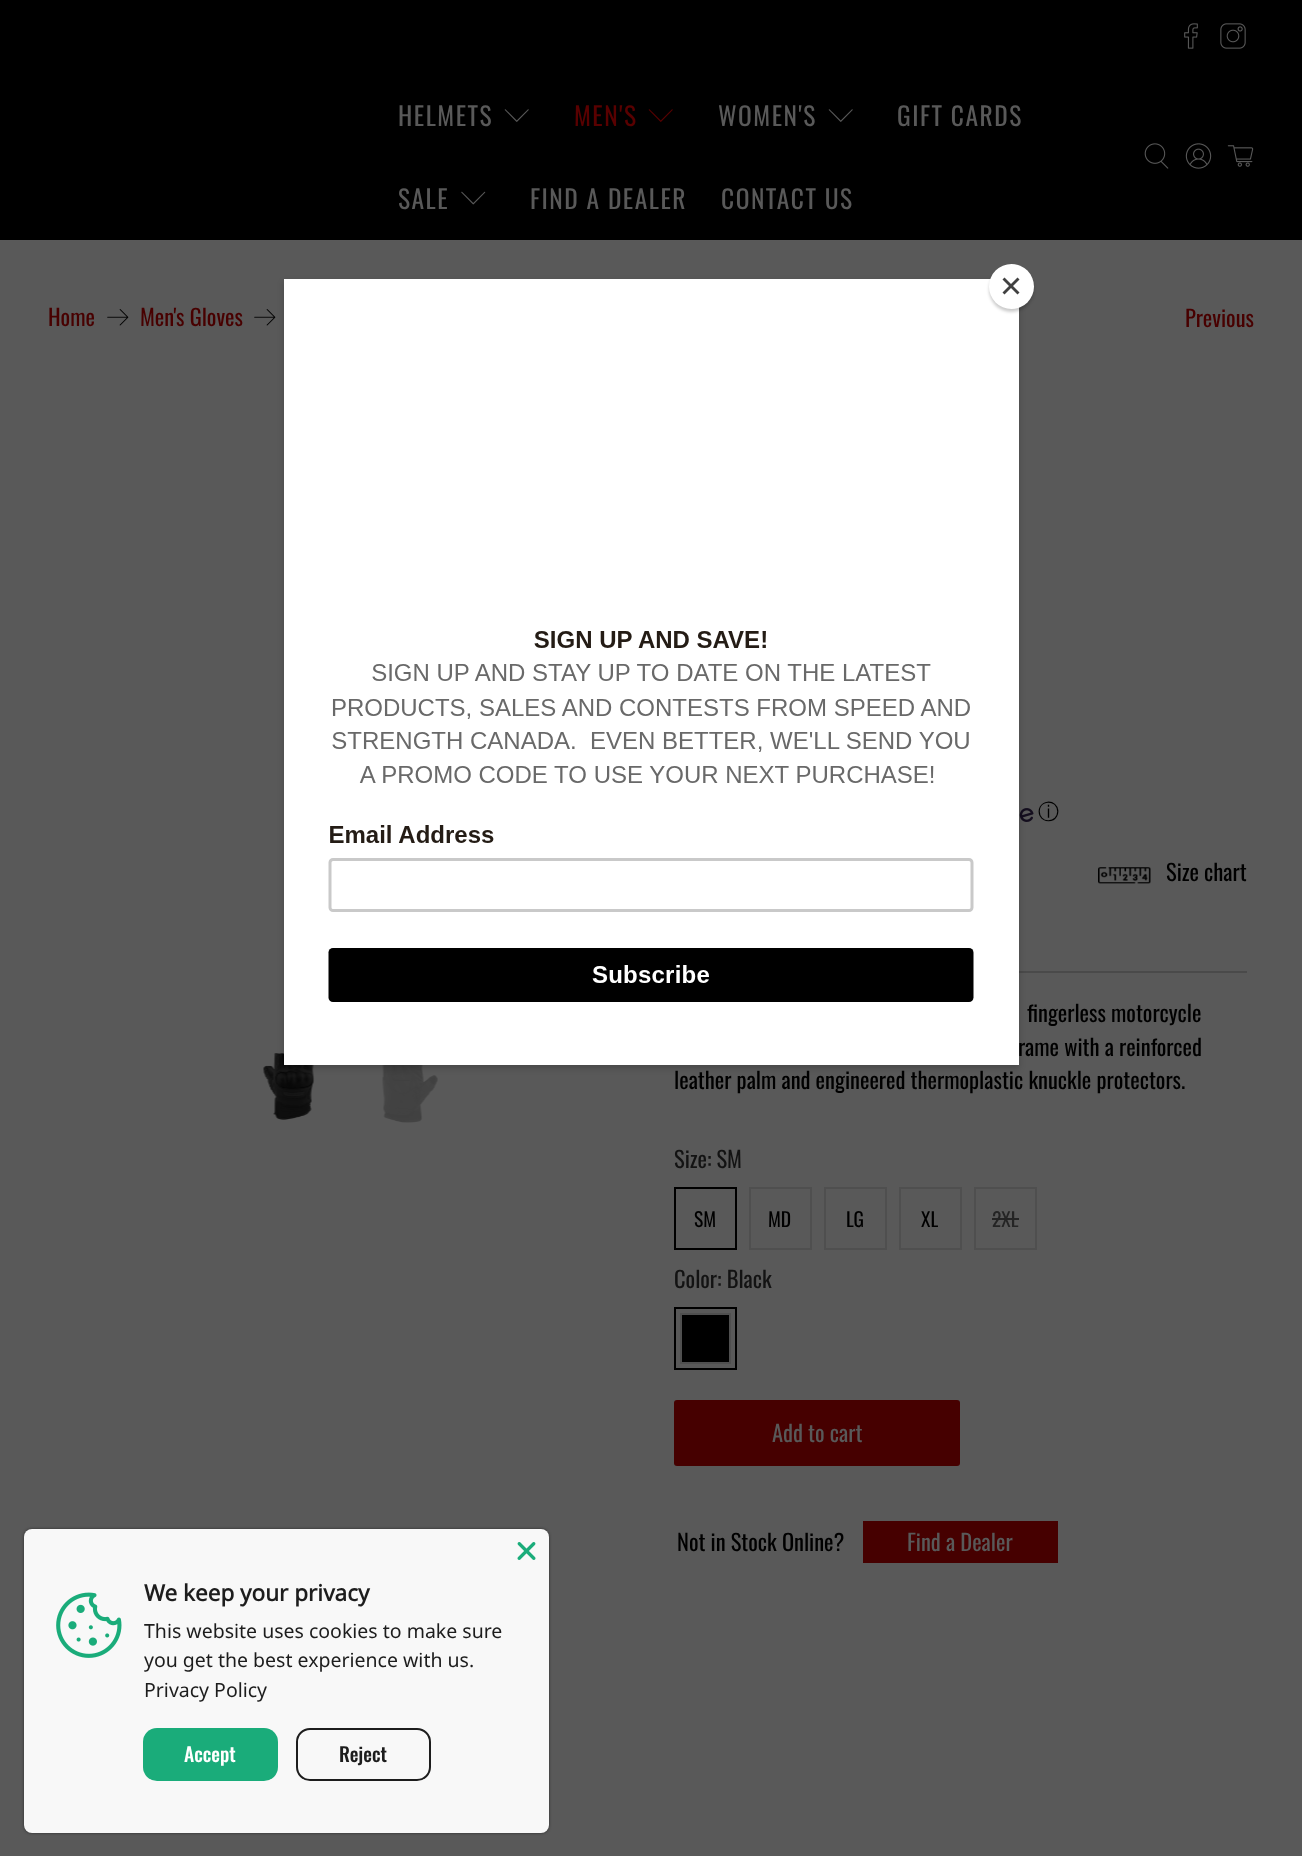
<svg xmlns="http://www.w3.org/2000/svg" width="1302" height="1856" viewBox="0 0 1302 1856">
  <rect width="100%" height="100%" fill="#595959"/>
  <path d="M0 0h1302v240H0z" fill="#000"/>
  <image x="1184" y="23" width="14" height="26" href="img/1.png"/>
  <image x="1220" y="23" width="26" height="26" href="img/2.png"/>
  <image x="504" y="109" width="25" height="13" href="img/3.png"/>
  <image x="648" y="109" width="25" height="13" href="img/4.png"/>
  <image x="828" y="109" width="25" height="13" href="img/3.png"/>
  <image x="461" y="191" width="25" height="14" href="img/5.png"/>
  <image x="1144" y="143" width="25" height="26" href="img/6.png"/>
  <image x="1185" y="143" width="27" height="26" href="img/7.png"/>
  <image x="1227" y="145" width="27" height="22" href="img/8.png"/>
  <image x="254" y="309" width="22" height="17" href="img/10.png"/>
  <image x="263" y="1052" width="52" height="68" href="img/11.png"/>
  <image x="382" y="1065" width="56" height="58" href="img/12.png"/>
  <image x="1019" y="808" width="15" height="14" href="img/13.png"/>
  <path d="M1019 971h228v2H1019z" fill="#4a4a4a"/>
  <path d="M284 282h735v786H284z" fill="#00000033" filter="blur(3px)"/>
  <image x="284" y="279" width="735" height="786" href="img/9.png"/>
  <rect x="989" y="267" width="45" height="45" rx="22.5" fill="#00000033" filter="blur(1.5px)"/>
  <circle cx="1011.5" cy="286.5" r="22.5" fill="#fff"/>
  <path d="M1017.5 277.5L1019.5 279.5L1004.5 294.5L1002.5 292.5Z" fill="#414141"/>
  <path d="M1002.5 279.5L1004.5 277.5L1019.5 292.5L1017.5 294.5Z" fill="#414141"/>
  <image x="107" y="309" width="22" height="17" href="img/10.png"/>
  <image x="1098" y="867" width="53" height="17" href="img/14.png"/>
  <path d="M675 1188h61v61H675z" fill="none" stroke="#000" stroke-width="2"/>
  <path d="M750 1188h61v61H750z" fill="none" stroke="#4f4f4f" stroke-width="2"/>
  <path d="M825 1188h61v61H825z" fill="none" stroke="#4f4f4f" stroke-width="2"/>
  <path d="M900 1188h61v61H900z" fill="none" stroke="#4f4f4f" stroke-width="2"/>
  <path d="M975 1188h61v61H975z" fill="none" stroke="#4f4f4f" stroke-width="2"/>
  <path d="M992 1218h27v2H992z" fill="#242424"/>
  <path d="M675 1308h61v61H675z" fill="none" stroke="#000" stroke-width="2"/>
  <path d="M681 1314h49v49H681z" fill="#000" stroke="#4f4f4f" stroke-width="2"/>
  <rect x="674" y="1400" width="286" height="66" rx="3" fill="#460000"/>
  <path d="M863 1521h195v42H863z" fill="#460000"/>
  <rect x="24" y="1529" width="525" height="304" rx="8" fill="#00000080" filter="blur(1.5px)"/>
  <rect x="24" y="1529" width="525" height="304" rx="8" fill="#f8f8f8"/>
  <image x="517" y="1542" width="19" height="18" href="img/15.png"/>
  <image x="56" y="1592" width="66" height="66" href="img/16.png"/>
  <rect x="143" y="1728" width="135" height="53" rx="14" fill="#1aac7a"/>
  <rect x="297" y="1729" width="133" height="51" rx="13" fill="none" stroke="#1d1d1d" stroke-width="2"/>
  <text x="398" y="126" font-family="Oswald" font-size="25.5" letter-spacing="1.5" fill="#595959">HELMETS</text>
  <text x="574" y="126" font-family="Oswald" font-size="25.5" letter-spacing="1.5" fill="#590000">MEN'S</text>
  <g font-family="Oswald" font-size="25.5" letter-spacing="1.5" fill="#595959">
    <text x="718" y="126">WOMEN'S</text>
    <text x="897" y="126">GIFT CARDS</text>
    <text x="398" y="209">SALE</text>
    <text x="530" y="209">FIND A DEALER</text>
    <text x="721" y="209">CONTACT US</text>
  </g>
  <g font-family="Oswald" font-size="22.5" fill="#480000">
    <text x="48" y="326">Home</text>
    <text x="140" y="326">Men's Gloves</text>
    <text x="1185" y="327">Previous</text>
  </g>
  <text x="1038" y="819" font-family="WenQuanYi Zen Hei" font-size="21" font-weight="500" fill="#000">ⓘ</text>
  <g font-family="Oswald" font-size="22.5" fill="#000">
    <text x="1166" y="881">Size chart</text>
    <text x="1027" y="1022">fingerless motorcycle</text>
    <text x="1018" y="1056">rame with a reinforced</text>
    <text x="674" y="1089">leather palm and engineered thermoplastic knuckle protectors.</text>
  </g>
  <text x="674" y="1168" font-family="Oswald" font-size="22.5" fill="#131313">Size: SM</text>
  <g font-family="Oswald" font-size="19.5" fill="#000">
    <text x="694" y="1227">SM</text>
    <text x="768" y="1227">MD</text>
    <text x="846" y="1227">LG</text>
    <text x="921" y="1227">XL</text>
  </g>
  <text x="992" y="1227" font-family="Oswald" font-size="19.5" fill="#242424">2XL</text>
  <text x="674" y="1288" font-family="Oswald" font-size="22.5" fill="#131313">Color: Black</text>
  <text x="772" y="1442" font-family="Oswald" font-size="22.5" fill="#595959">Add to cart</text>
  <text x="677" y="1551" font-family="Oswald" font-size="22.5" fill="#000">Not in Stock Online?</text>
  <text x="907" y="1551" font-family="Oswald" font-size="22.5" fill="#595959">Find a Dealer</text>
  <text x="144" y="1601" font-family="Noto Sans" font-size="22.5" font-weight="bold" fill="#1d1d1d">We keep your privacy</text>
  <g font-family="Noto Sans" font-size="19.5" fill="#1d1d1d">
    <text x="144" y="1638">This website uses cookies to make sure</text>
    <text x="144" y="1667">you get the best experience with us.</text>
    <text x="144" y="1697">Privacy Policy</text>
  </g>
  <text x="184" y="1762" font-family="Oswald" font-size="19.5" font-weight="500" fill="#fff">Accept</text>
  <text x="339" y="1762" font-family="Oswald" font-size="19.5" font-weight="500" fill="#1d1d1d">Reject</text>
</svg>
